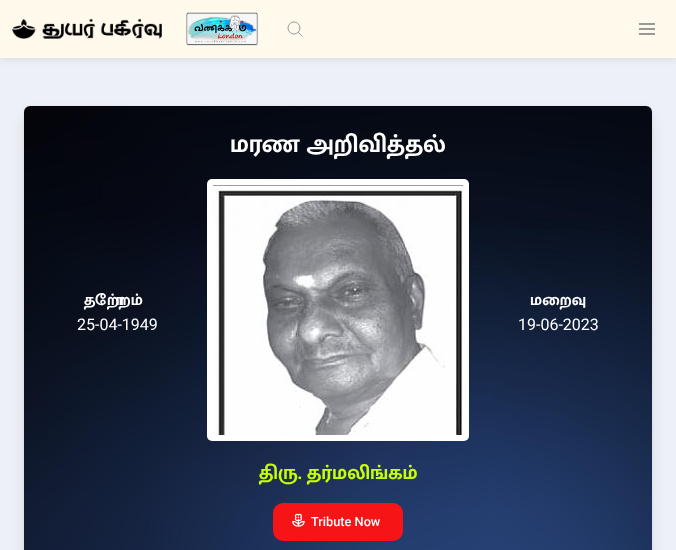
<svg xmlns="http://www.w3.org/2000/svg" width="676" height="550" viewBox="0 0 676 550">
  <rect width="100%" height="100%" fill="#edf0f7"/>
  <path d="M0 0h676v58H0z" fill="#0000001f" filter="blur(4px)"/>
  <path d="M0 0h676v58H0z" fill="#fffaeb"/>
  <image x="12" y="19" width="150" height="20" href="img/1.png"/>
  <image x="186" y="12" width="72" height="34" href="img/2.png"/>
  <circle cx="294" cy="28" r="6" fill="none" stroke="#999"/>
  <path d="M302 36L298.5 32.5" fill="none" stroke="#999" stroke-linecap="round" stroke-linejoin="round"/>
  <path d="M639 23h16v2H639z" fill="#999"/>
  <path d="M639 28h16v2H639z" fill="#999"/>
  <path d="M639 33h16v2H639z" fill="#999"/>
  <rect x="23.5" y="105.5" width="629" height="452" rx="6.5" fill="none" stroke="#e8ebf2"/>
  <rect x="26" y="116" width="624" height="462" rx="4" fill="#0a0a0a1a" filter="blur(8px)"/>
  <image x="24" y="106" width="628" height="444" href="img/3.png"/>
  <rect x="207" y="179" width="262" height="262" rx="5" fill="#fff"/>
  <image x="213" y="185" width="250" height="250" href="img/4.png"/>
  <rect x="273" y="503" width="130" height="38" rx="10" fill="#f71416"/>
  <image x="292" y="513" width="13" height="14" href="img/5.png"/>
  <text x="230" y="152" font-family="Mukta Malar" font-size="25" font-weight="bold" fill="#fff">மரண அறிவித்தல்</text>
  <text x="84" y="305" font-family="Mukta Malar" font-size="16" font-weight="bold" fill="#fff">தோற்றம்</text>
  <text x="77" y="330" font-family="Roboto" font-size="16" fill="#fff">25-04-1949</text>
  <text x="530" y="305" font-family="Mukta Malar" font-size="16" font-weight="bold" fill="#fff">மறைவு</text>
  <text x="518" y="330" font-family="Roboto" font-size="16" fill="#fff">19-06-2023</text>
  <text x="259" y="479" font-family="Mukta Malar" font-size="20" font-weight="bold" fill="#c8ff05">திரு. தர்மலிங்கம்</text>
  <text x="311" y="526" font-family="Roboto" font-size="12.75" font-weight="500" fill="#fff">Tribute Now</text>
</svg>
